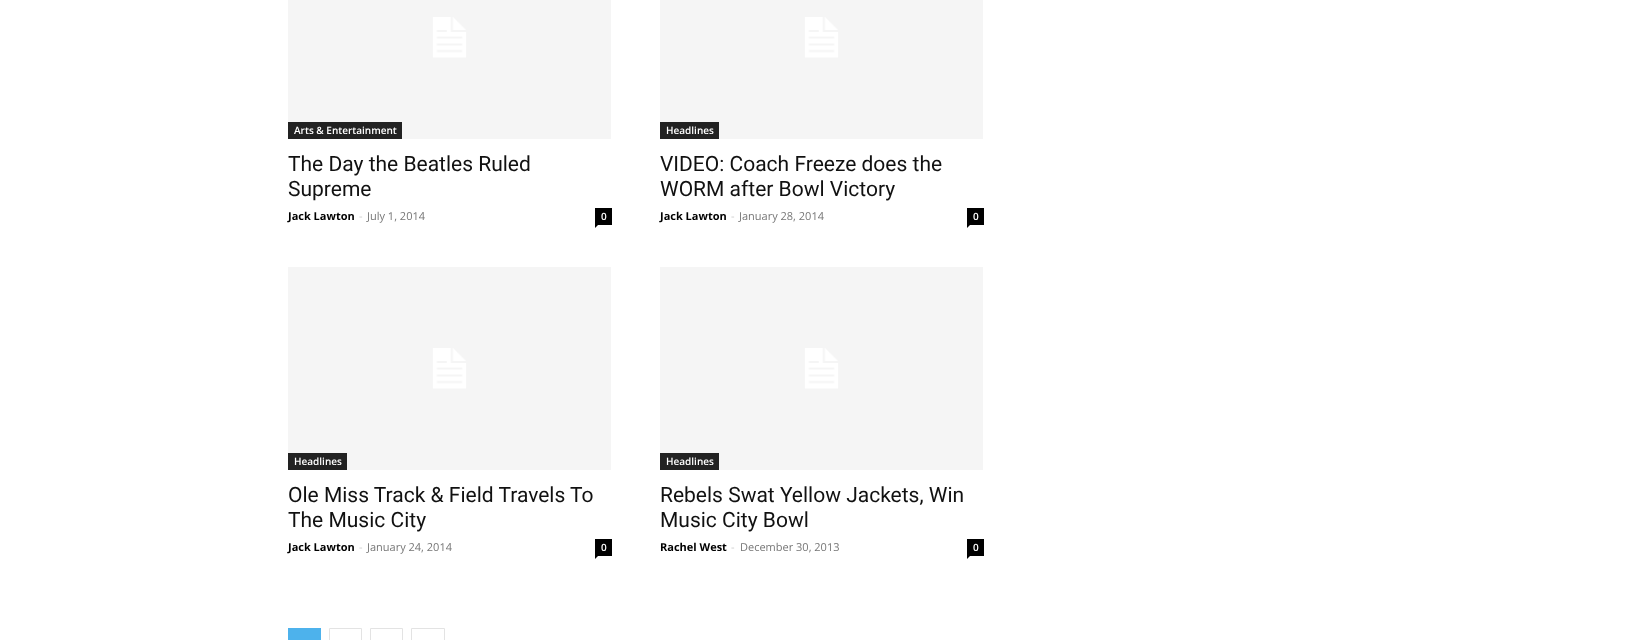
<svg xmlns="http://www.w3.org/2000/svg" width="1643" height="640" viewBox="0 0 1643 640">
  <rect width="100%" height="100%" fill="#fff"/>
  <image x="288" y="0" width="323" height="139" href="img/1.png"/>
  <path d="M288 122h114v17H288z" fill="#222"/>
  <path d="M595 208h17v17H595z" fill="#000"/>
  <path d="M595 225H598L595 228Z" fill="#000"/>
  <image x="660" y="0" width="323" height="139" href="img/1.png"/>
  <path d="M660 122h59v17H660z" fill="#222"/>
  <path d="M967 208h17v17H967z" fill="#000"/>
  <path d="M967 225H970L967 228Z" fill="#000"/>
  <image x="288" y="267" width="323" height="203" href="img/2.png"/>
  <path d="M288 453h59v17H288z" fill="#222"/>
  <path d="M595 539h17v17H595z" fill="#000"/>
  <path d="M595 556H598L595 559Z" fill="#000"/>
  <image x="660" y="267" width="323" height="203" href="img/2.png"/>
  <path d="M660 453h59v17H660z" fill="#222"/>
  <path d="M967 539h17v17H967z" fill="#000"/>
  <path d="M967 556H970L967 559Z" fill="#000"/>
  <path d="M288 628h33v12H288z" fill="#4db2ec"/>
  <path d="M329.5 628.5h32v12H329.5z" fill="none" stroke="#e3e3e3"/>
  <path d="M370.5 628.5h32v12H370.5z" fill="none" stroke="#e3e3e3"/>
  <path d="M411.5 628.5h33v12H411.5z" fill="none" stroke="#e3e3e3"/>
  <text x="294" y="134" font-family="Open Sans" font-size="10" font-weight="600" fill="#fff">Arts &amp; Entertainment</text>
  <g font-family="Roboto" font-size="21" fill="#111">
    <text x="288" y="171">The Day the Beatles Ruled</text>
    <text x="288" y="196">Supreme</text>
  </g>
  <text x="288" y="220" font-family="Open Sans" font-size="11" font-weight="bold" fill="#000">Jack Lawton</text>
  <text x="359" y="220" font-family="Open Sans" font-size="11" fill="#ccc">-</text>
  <text x="367" y="220" font-family="Open Sans" font-size="11" fill="#767676">July 1, 2014</text>
  <g font-family="Open Sans" font-size="10" font-weight="600" fill="#fff">
    <text x="601" y="220">0</text>
    <text x="666" y="134">Headlines</text>
  </g>
  <g font-family="Roboto" font-size="21" fill="#111">
    <text x="660" y="171">VIDEO: Coach Freeze does the</text>
    <text x="660" y="196">WORM after Bowl Victory</text>
  </g>
  <text x="660" y="220" font-family="Open Sans" font-size="11" font-weight="bold" fill="#000">Jack Lawton</text>
  <text x="731" y="220" font-family="Open Sans" font-size="11" fill="#ccc">-</text>
  <text x="739" y="220" font-family="Open Sans" font-size="11" fill="#767676">January 28, 2014</text>
  <g font-family="Open Sans" font-size="10" font-weight="600" fill="#fff">
    <text x="973" y="220">0</text>
    <text x="294" y="465">Headlines</text>
  </g>
  <g font-family="Roboto" font-size="21" fill="#111">
    <text x="288" y="502">Ole Miss Track &amp; Field Travels To</text>
    <text x="288" y="527">The Music City</text>
  </g>
  <text x="288" y="551" font-family="Open Sans" font-size="11" font-weight="bold" fill="#000">Jack Lawton</text>
  <text x="359" y="551" font-family="Open Sans" font-size="11" fill="#ccc">-</text>
  <text x="367" y="551" font-family="Open Sans" font-size="11" fill="#767676">January 24, 2014</text>
  <g font-family="Open Sans" font-size="10" font-weight="600" fill="#fff">
    <text x="601" y="551">0</text>
    <text x="666" y="465">Headlines</text>
  </g>
  <g font-family="Roboto" font-size="21" fill="#111">
    <text x="660" y="502">Rebels Swat Yellow Jackets, Win</text>
    <text x="660" y="527">Music City Bowl</text>
  </g>
  <text x="660" y="551" font-family="Open Sans" font-size="11" font-weight="bold" fill="#000">Rachel West</text>
  <text x="731" y="551" font-family="Open Sans" font-size="11" fill="#ccc">-</text>
  <text x="740" y="551" font-family="Open Sans" font-size="11" fill="#767676">December 30, 2013</text>
  <text x="973" y="551" font-family="Open Sans" font-size="10" font-weight="600" fill="#fff">0</text>
</svg>
